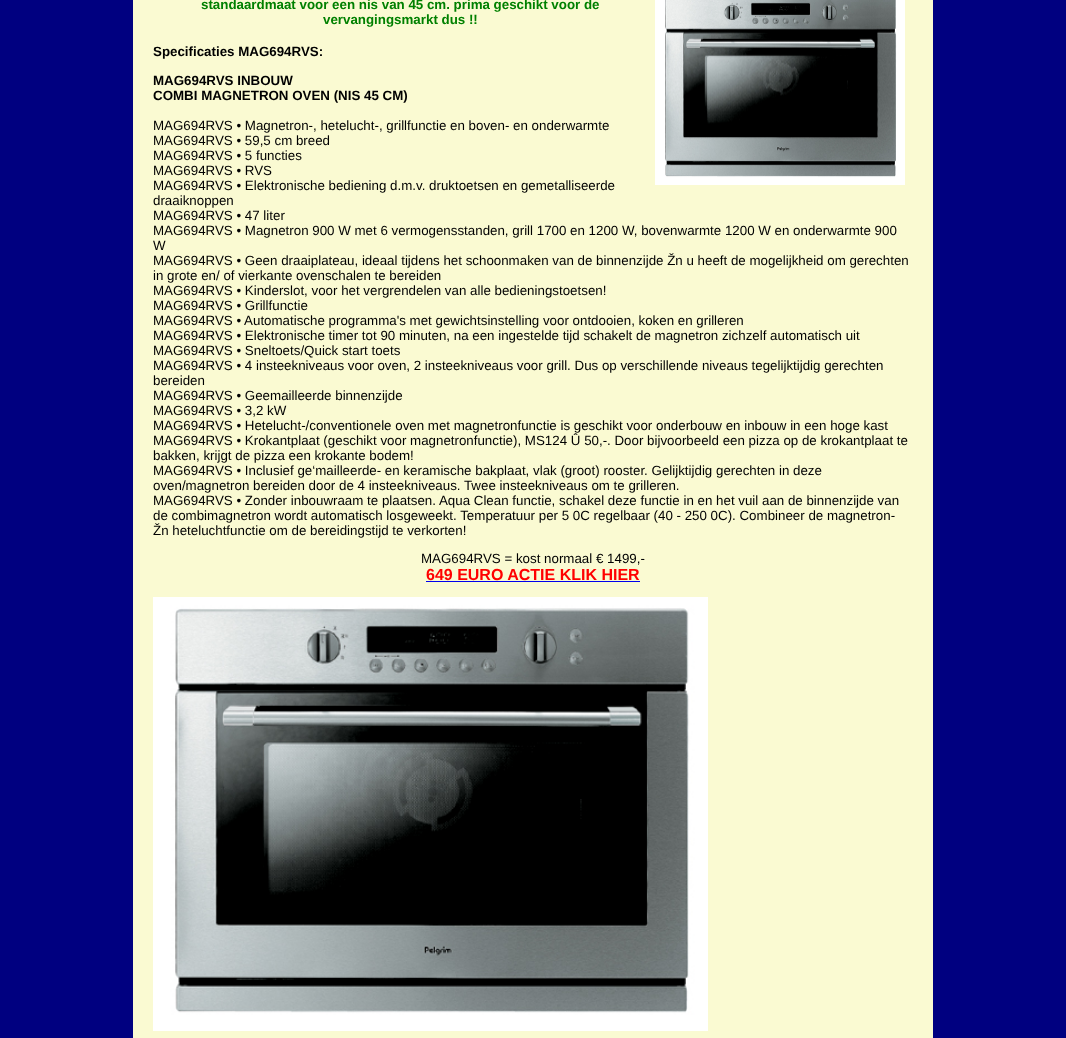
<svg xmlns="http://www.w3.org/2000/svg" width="1066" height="1038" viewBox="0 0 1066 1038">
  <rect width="100%" height="100%" fill="#000080"/>
  <path d="M133 0h800v1038H133z" fill="#fafad2"/>
  <image x="655" y="0" width="250" height="185" href="img/1.png"/>
  <path d="M426 581h214v1H426z" fill="#00e"/>
  <image x="153" y="597" width="555" height="434" href="img/2.png"/>
  <g font-family="Liberation Sans" font-size="13.33" font-weight="bold" fill="#008000">
    <text x="201" y="9">standaardmaat voor een nis van 45 cm. prima geschikt voor de</text>
    <text x="323" y="24">vervangingsmarkt dus !!</text>
  </g>
  <g font-family="Liberation Sans" font-size="13.33" font-weight="bold" fill="#000">
    <text x="153" y="56">Specificaties MAG694RVS:</text>
    <text x="153" y="85">MAG694RVS INBOUW</text>
    <text x="153" y="100">COMBI MAGNETRON OVEN (NIS 45 CM)</text>
  </g>
  <g font-family="Liberation Sans" font-size="13.33" fill="#000">
    <text x="153" y="130">MAG694RVS • Magnetron-, hetelucht-, grillfunctie en boven- en onderwarmte</text>
    <text x="153" y="145">MAG694RVS • 59,5 cm breed</text>
    <text x="153" y="160">MAG694RVS • 5 functies</text>
    <text x="153" y="175">MAG694RVS • RVS</text>
    <text x="153" y="190">MAG694RVS • Elektronische bediening d.m.v. druktoetsen en gemetalliseerde</text>
    <text x="153" y="205">draaiknoppen</text>
    <text x="153" y="220">MAG694RVS • 47 liter</text>
    <text x="153" y="235">MAG694RVS • Magnetron 900 W met 6 vermogensstanden, grill 1700 en 1200 W, bovenwarmte 1200 W en onderwarmte 900</text>
    <text x="153" y="250">W</text>
    <text x="153" y="265">MAG694RVS • Geen draaiplateau, ideaal tijdens het schoonmaken van de binnenzijde Žn u heeft de mogelijkheid om gerechten</text>
    <text x="153" y="280">in grote en/ of vierkante ovenschalen te bereiden</text>
    <text x="153" y="295">MAG694RVS • Kinderslot, voor het vergrendelen van alle bedieningstoetsen!</text>
    <text x="153" y="310">MAG694RVS • Grillfunctie</text>
    <text x="153" y="325">MAG694RVS • Automatische programma's met gewichtsinstelling voor ontdooien, koken en grilleren</text>
    <text x="153" y="340">MAG694RVS • Elektronische timer tot 90 minuten, na een ingestelde tijd schakelt de magnetron zichzelf automatisch uit</text>
    <text x="153" y="355">MAG694RVS • Sneltoets/Quick start toets</text>
    <text x="153" y="370">MAG694RVS • 4 insteekniveaus voor oven, 2 insteekniveaus voor grill. Dus op verschillende niveaus tegelijktijdig gerechten</text>
    <text x="153" y="385">bereiden</text>
    <text x="153" y="400">MAG694RVS • Geemailleerde binnenzijde</text>
    <text x="153" y="415">MAG694RVS • 3,2 kW</text>
    <text x="153" y="430">MAG694RVS • Hetelucht-/conventionele oven met magnetronfunctie is geschikt voor onderbouw en inbouw in een hoge kast</text>
    <text x="153" y="445">MAG694RVS • Krokantplaat (geschikt voor magnetronfunctie), MS124 Û 50,-. Door bijvoorbeeld een pizza op de krokantplaat te</text>
    <text x="153" y="460">bakken, krijgt de pizza een krokante bodem!</text>
    <text x="153" y="475">MAG694RVS • Inclusief ge‘mailleerde- en keramische bakplaat, vlak (groot) rooster. Gelijktijdig gerechten in deze</text>
    <text x="153" y="490">oven/magnetron bereiden door de 4 insteekniveaus. Twee insteekniveaus om te grilleren.</text>
    <text x="153" y="505">MAG694RVS • Zonder inbouwraam te plaatsen. Aqua Clean functie, schakel deze functie in en het vuil aan de binnenzijde van</text>
    <text x="153" y="520">de combimagnetron wordt automatisch losgeweekt. Temperatuur per 5 0C regelbaar (40 - 250 0C). Combineer de magnetron-</text>
    <text x="153" y="535">Žn heteluchtfunctie om de bereidingstijd te verkorten!</text>
    <text x="421" y="563">MAG694RVS = kost normaal € 1499,-</text>
  </g>
  <text x="426" y="580" font-family="Liberation Sans" font-size="16" font-weight="bold" fill="#f00">649 EURO ACTIE KLIK HIER</text>
</svg>
